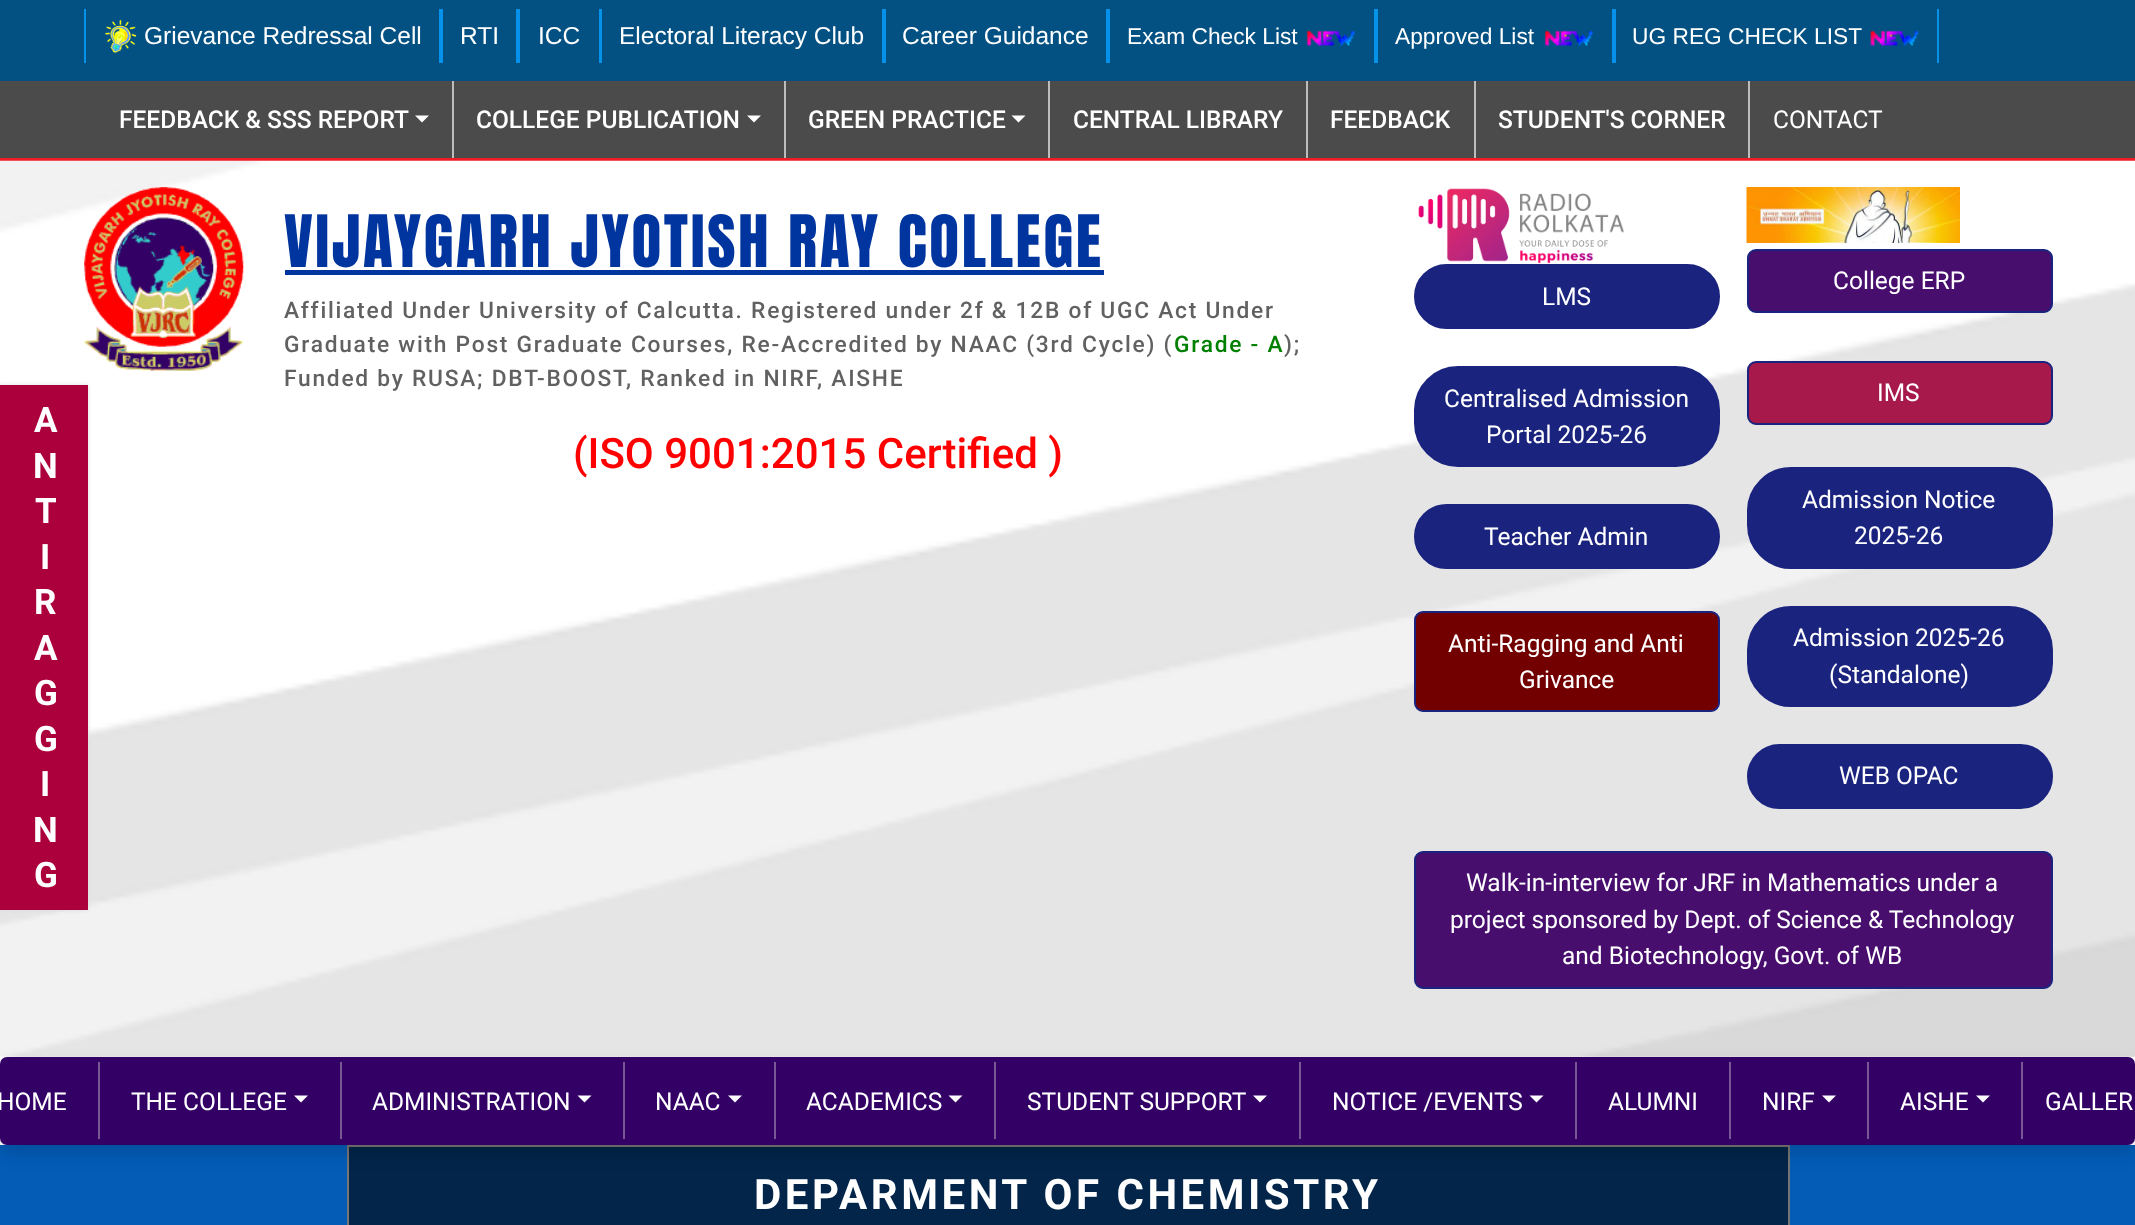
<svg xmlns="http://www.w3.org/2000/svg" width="2135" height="1225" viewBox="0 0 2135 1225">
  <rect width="100%" height="100%" fill="#fff"/>
  <path d="M0 0h2135v81H0z" fill="#035182"/>
  <path d="M439 9h4v54H439z" fill="#0692eb"/>
  <path d="M84 9h2v54H84z" fill="#0692eb"/>
  <image x="105" y="19" width="32" height="34" href="img/1.png"/>
  <path d="M516 9h4v54H516z" fill="#0692eb"/>
  <path d="M599 9h3v54H599z" fill="#0692eb"/>
  <path d="M882 9h4v54H882z" fill="#0692eb"/>
  <path d="M1106 9h4v54H1106z" fill="#0692eb"/>
  <path d="M1374 9h4v54H1374z" fill="#0692eb"/>
  <image x="1306" y="30" width="49" height="16" href="img/2.png"/>
  <path d="M1612 9h4v54H1612z" fill="#0692eb"/>
  <image x="1544" y="30" width="49" height="16" href="img/2.png"/>
  <path d="M1937 9h2v54H1937z" fill="#0692eb"/>
  <image x="1870" y="30" width="49" height="16" href="img/3.png"/>
  <path d="M0 81h2135v77H0z" fill="#4b4b4b"/>
  <path d="M0 158h2135v3H0z" fill="#ef1c24"/>
  <path d="M452 81h2v77H452z" fill="#bdbdbd"/>
  <path d="M415 115.5H429L422 122.5Z" fill="#fff"/>
  <path d="M784 81h2v77H784z" fill="#bdbdbd"/>
  <path d="M747 115.5H761L754 122.5Z" fill="#fff"/>
  <path d="M1048 81h2v77H1048z" fill="#bdbdbd"/>
  <path d="M1011.5 115.5H1025.5L1018.5 122.5Z" fill="#fff"/>
  <path d="M1306 81h2v77H1306z" fill="#bdbdbd"/>
  <path d="M1474 81h2v77H1474z" fill="#bdbdbd"/>
  <path d="M1748 81h2v77H1748z" fill="#bdbdbd"/>
  <image x="0" y="160" width="2135" height="897" href="img/4.png"/>
  <path d="M0 385h88v525H0z" fill="#ddd" filter="blur(2px)"/>
  <path d="M1 386h86v523H1z" fill="none" stroke="#ac003d" stroke-width="2"/>
  <path d="M2 387h84v521H2z" fill="#ac003d"/>
  <image x="84" y="187" width="160" height="184" href="img/5.png"/>
  <path d="M285 270h819v5H285z" fill="#00349e"/>
  <image x="1418" y="188" width="206" height="76" href="img/6.png"/>
  <rect x="1415" y="265" width="304" height="63" rx="31.5" fill="#1a237e" stroke="#1a237e" stroke-width="2"/>
  <rect x="1415" y="367" width="304" height="99" rx="43" fill="#1a237e" stroke="#1a237e" stroke-width="2"/>
  <rect x="1415" y="505" width="304" height="63" rx="31.5" fill="#1a237e" stroke="#1a237e" stroke-width="2"/>
  <rect x="1415" y="612" width="304" height="99" rx="8" fill="#730000" stroke="#1a237e" stroke-width="2"/>
  <image x="1746" y="187" width="214" height="56" href="img/7.png"/>
  <rect x="1748" y="250" width="304" height="62" rx="8" fill="#470e6e" stroke="#1a237e" stroke-width="2"/>
  <rect x="1748" y="362" width="304" height="62" rx="8" fill="#a7194b" stroke="#1a237e" stroke-width="2"/>
  <rect x="1748" y="468" width="304" height="100" rx="43" fill="#1a237e" stroke="#1a237e" stroke-width="2"/>
  <rect x="1748" y="607" width="304" height="99" rx="43" fill="#1a237e" stroke="#1a237e" stroke-width="2"/>
  <rect x="1748" y="745" width="304" height="63" rx="31.5" fill="#1a237e" stroke="#1a237e" stroke-width="2"/>
  <rect x="1415" y="852" width="637" height="136" rx="8" fill="#470e6e" stroke="#1a237e" stroke-width="2"/>
  <path d="M0 1145h2135v80H0z" fill="#045cb7"/>
  <path d="M348 1146h1441v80H348z" fill="#022549" stroke="#757575" stroke-width="2"/>
  <rect y="1066" width="2135" height="87" rx="7" fill="#00000026" filter="blur(9px)"/>
  <rect y="1057" width="2135" height="88" rx="7" fill="#306"/>
  <path d="M98 1062h2v77H98z" fill="#775796"/>
  <path d="M340 1062h2v77H340z" fill="#775796"/>
  <path d="M294 1095.5H308L301 1102.5Z" fill="#fff"/>
  <path d="M623 1062h2v77H623z" fill="#775796"/>
  <path d="M577.5 1095.5H591.5L584.5 1102.5Z" fill="#fff"/>
  <path d="M774 1062h2v77H774z" fill="#775796"/>
  <path d="M728 1095.5H742L735 1102.5Z" fill="#fff"/>
  <path d="M994 1062h2v77H994z" fill="#775796"/>
  <path d="M948.5 1095.5H962.5L955.5 1102.5Z" fill="#fff"/>
  <path d="M1299 1062h2v77H1299z" fill="#775796"/>
  <path d="M1253 1095.5H1267L1260 1102.5Z" fill="#fff"/>
  <path d="M1575 1062h2v77H1575z" fill="#775796"/>
  <path d="M1529.5 1095.5H1543.5L1536.5 1102.5Z" fill="#fff"/>
  <path d="M1729 1062h2v77H1729z" fill="#775796"/>
  <path d="M1867 1062h2v77H1867z" fill="#775796"/>
  <path d="M1822 1095.5H1836L1829 1102.5Z" fill="#fff"/>
  <path d="M2021 1062h2v77H2021z" fill="#775796"/>
  <path d="M1976 1095.5H1990L1983 1102.5Z" fill="#fff"/>
  <g font-family="Liberation Sans" font-size="24.5" fill="#fff">
    <text x="144" y="44">Grievance Redressal Cell</text>
    <text x="460" y="44">RTI</text>
    <text x="538" y="44">ICC</text>
    <text x="619" y="44">Electoral Literacy Club</text>
    <text x="902" y="44">Career Guidance</text>
  </g>
  <g font-family="Liberation Sans" font-size="22.75" fill="#fff">
    <text x="1127" y="44">Exam Check List</text>
    <text x="1395" y="44">Approved List</text>
    <text x="1632" y="44">UG REG CHECK LIST</text>
  </g>
  <g font-family="Roboto" font-size="24.5" font-weight="500" fill="#fff">
    <text x="119" y="128">FEEDBACK &amp; SSS REPORT</text>
    <text x="476" y="128">COLLEGE PUBLICATION</text>
    <text x="808" y="128">GREEN PRACTICE</text>
    <text x="1073" y="128">CENTRAL LIBRARY</text>
    <text x="1330" y="128">FEEDBACK</text>
    <text x="1498" y="128">STUDENT'S CORNER</text>
  </g>
  <text x="1773" y="128" font-family="Roboto" font-size="24.5" fill="#fff">CONTACT</text>
  <g font-family="Roboto" font-size="35" font-weight="bold" fill="#fff">
    <text x="34" y="432">A</text>
    <text x="33" y="478">N</text>
    <text x="35" y="523">T</text>
    <text x="40" y="569">I</text>
    <text x="34" y="614">R</text>
    <text x="34" y="660">A</text>
    <text x="34" y="705">G</text>
    <text x="34" y="751">G</text>
    <text x="40" y="796">I</text>
    <text x="33" y="842">N</text>
    <text x="34" y="887">G</text>
  </g>
  <text x="284" y="267" font-family="Anton" font-size="61.25" letter-spacing="2.6" fill="#00349e">VIJAYGARH JYOTISH RAY COLLEGE</text>
  <g font-family="Roboto" font-size="22.75" font-weight="500" letter-spacing="1.75" fill="#616161">
    <text x="284" y="318">Affiliated Under University of Calcutta. Registered under 2f &amp; 12B of UGC Act Under</text>
    <text x="284" y="352">Graduate with Post Graduate Courses, Re-Accredited by NAAC (3rd Cycle) (</text>
  </g>
  <text x="1174" y="352" font-family="Roboto" font-size="22.75" font-weight="500" letter-spacing="1.75" fill="#008000">Grade - A</text>
  <g font-family="Roboto" font-size="22.75" font-weight="500" letter-spacing="1.75" fill="#616161">
    <text x="1284" y="352">);</text>
    <text x="284" y="386">Funded by RUSA; DBT-BOOST, Ranked in NIRF, AISHE</text>
  </g>
  <text x="573" y="468" font-family="Roboto" font-size="42" font-weight="500" fill="#f00">(ISO 9001:2015 Certified )</text>
  <g font-family="Roboto" font-size="24.5" fill="#fff">
    <text x="1542" y="305">LMS</text>
    <text x="1444" y="407">Centralised Admission</text>
    <text x="1486" y="443">Portal 2025-26</text>
    <text x="1484" y="545">Teacher Admin</text>
    <text x="1448" y="652">Anti-Ragging and Anti</text>
    <text x="1519" y="688">Grivance</text>
    <text x="1833" y="289">College ERP</text>
    <text x="1877" y="401">IMS</text>
    <text x="1802" y="508">Admission Notice</text>
    <text x="1854" y="544">2025-26</text>
    <text x="1793" y="646">Admission 2025-26</text>
    <text x="1829" y="683">(Standalone)</text>
    <text x="1839" y="784">WEB OPAC</text>
    <text x="1466" y="891">Walk-in-interview for JRF in Mathematics under a</text>
    <text x="1450" y="928">project sponsored by Dept. of Science &amp; Technology</text>
    <text x="1562" y="964">and Biotechnology, Govt. of WB</text>
    <text x="-3" y="1110">HOME</text>
    <text x="131" y="1110">THE COLLEGE</text>
    <text x="372" y="1110">ADMINISTRATION</text>
    <text x="655" y="1110">NAAC</text>
    <text x="806" y="1110">ACADEMICS</text>
    <text x="1027" y="1110">STUDENT SUPPORT</text>
    <text x="1332" y="1110">NOTICE /EVENTS</text>
    <text x="1608" y="1110">ALUMNI</text>
    <text x="1762" y="1110">NIRF</text>
    <text x="1900" y="1110">AISHE</text>
    <text x="2045" y="1110">GALLER</text>
  </g>
  <text x="754" y="1209" font-family="Roboto" font-size="42" font-weight="bold" letter-spacing="3.5" fill="#fff">DEPARMENT OF CHEMISTRY</text>
</svg>
